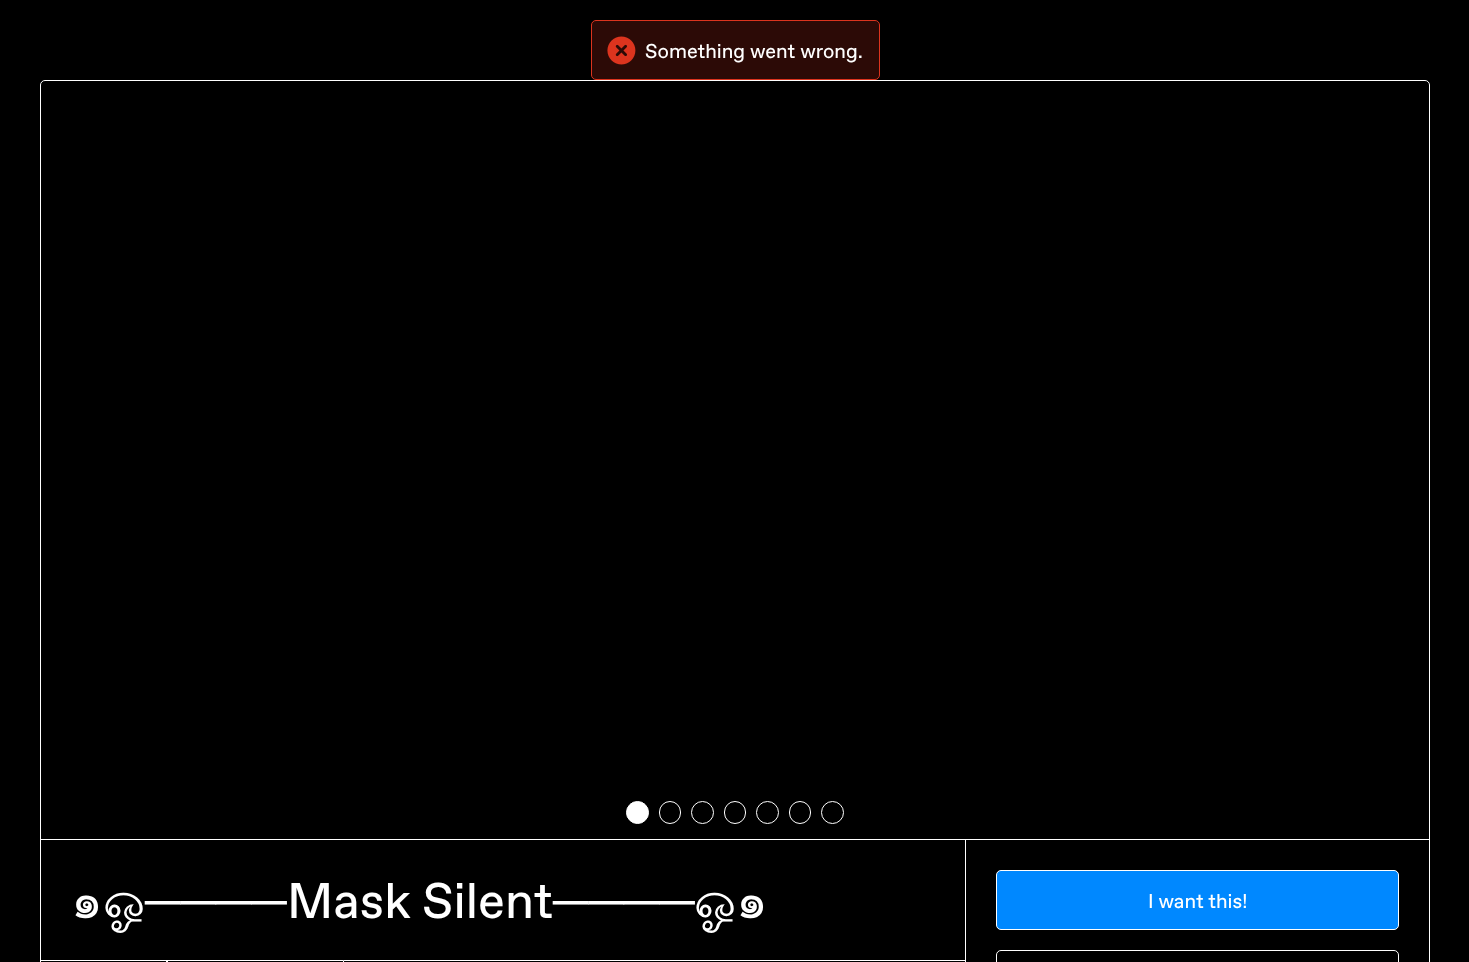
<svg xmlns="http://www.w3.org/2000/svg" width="1469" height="962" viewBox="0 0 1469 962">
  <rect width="100%" height="100%" fill="#000"/>
  <rect x="591.5" y="20.5" width="288" height="59" rx="4.5" fill="#2c0a06" stroke="#dc341e"/>
  <image x="607" y="36" width="29" height="29" href="img/1.png"/>
  <rect x="40.5" y="80.5" width="1389" height="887" rx="4.5" fill="none" stroke="#fff"/>
  <path d="M41 839h1388v1H41z" fill="#fff"/>
  <circle cx="637.5" cy="812.5" r="11" fill="#fff" stroke="#fff"/>
  <rect x="659.5" y="801.5" width="21" height="22" rx="10.5" fill="none" stroke="#fff"/>
  <circle cx="702.5" cy="812.5" r="11" fill="none" stroke="#fff"/>
  <rect x="724.5" y="801.5" width="21" height="22" rx="10.5" fill="none" stroke="#fff"/>
  <circle cx="767.5" cy="812.5" r="11" fill="none" stroke="#fff"/>
  <rect x="789.5" y="801.5" width="21" height="22" rx="10.5" fill="none" stroke="#fff"/>
  <circle cx="832.5" cy="812.5" r="11" fill="none" stroke="#fff"/>
  <path d="M965 840h1v122H965z" fill="#fff"/>
  <path d="M344 960h621v1H344z" fill="#fff"/>
  <path d="M40.5 960.5h127v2H40.5z" fill="none" stroke="#fff"/>
  <path d="M166.5 960.5h177v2H166.5z" fill="none" stroke="#fff"/>
  <rect x="996.5" y="870.5" width="402" height="59" rx="4.5" fill="#08f" stroke="#fff"/>
  <rect x="996.5" y="950.5" width="402" height="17" rx="4.5" fill="none" stroke="#fff"/>
  <text x="645" y="58" font-family="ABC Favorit" font-size="20" fill="#fff">Something went wrong.</text>
  <text x="71" y="918" font-family="Loma" font-size="50" fill="#fff">๑</text>
  <text x="103" y="918" font-family="Lohit Tamil" font-size="50" fill="#fff">ஓ</text>
  <text x="145" y="918" font-family="Liberation Sans" font-size="50" fill="#fff">────</text>
  <text x="287" y="918" font-family="ABC Favorit" font-size="50" fill="#fff">Mask Silent</text>
  <text x="553" y="918" font-family="Liberation Sans" font-size="50" fill="#fff">────</text>
  <text x="694" y="918" font-family="Lohit Tamil" font-size="50" fill="#fff">ஓ</text>
  <text x="736" y="918" font-family="Loma" font-size="50" fill="#fff">๑</text>
  <text x="1148" y="908" font-family="ABC Favorit" font-size="20" fill="#fff">I want this!</text>
</svg>
